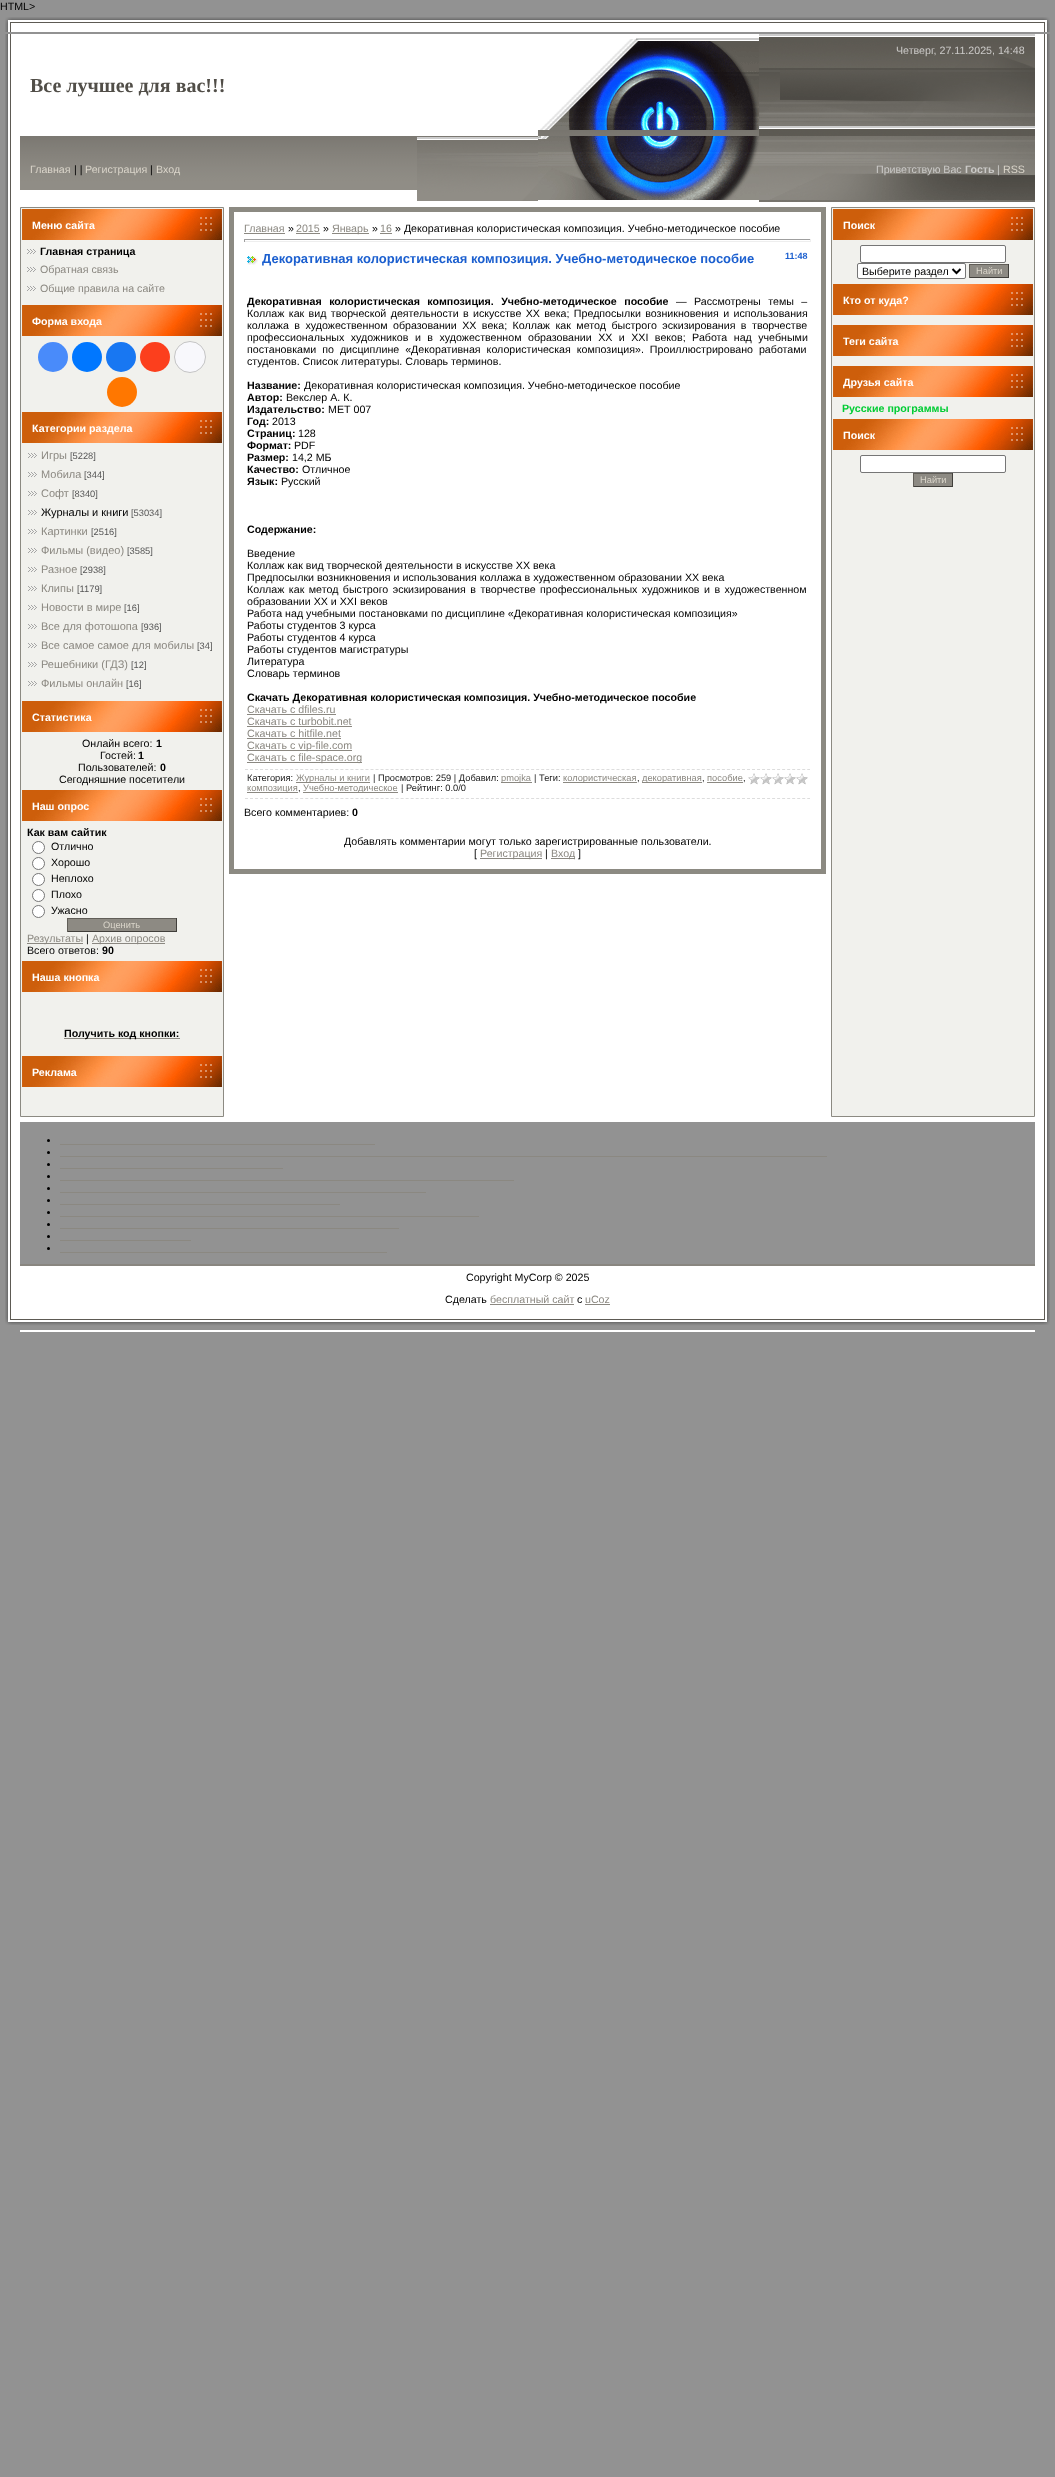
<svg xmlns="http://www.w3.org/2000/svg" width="1055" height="2477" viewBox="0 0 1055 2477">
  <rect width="100%" height="100%" fill="#929292"/>
  <image x="5" y="17" width="15" height="15" href="img/1.png"/>
  <image x="20" y="17" width="1015" height="15" href="img/2.png"/>
  <image x="1035" y="17" width="15" height="15" href="img/3.png"/>
  <image x="5" y="34" width="15" height="1276" href="img/4.png"/>
  <image x="20" y="34" width="739" height="168" href="img/5.png"/>
  <image x="538" y="38" width="221" height="92" href="img/6.png"/>
  <image x="759" y="34" width="276" height="102" href="img/7.png"/>
  <path d="M20 126h518v10H20z" fill="#fff"/>
  <image x="417" y="137" width="121" height="64" href="img/8.png"/>
  <image x="538" y="136" width="221" height="64" href="img/9.png"/>
  <image x="759" y="136" width="276" height="66" href="img/10.png"/>
  <path d="M20 202h1015v920H20z" fill="#fff"/>
  <path d="M20.5 207.5h203v909H20.5z" fill="#f1f1ed" stroke="#8c8a82"/>
  <image x="22" y="209" width="200" height="31" href="img/11.png"/>
  <image x="27" y="249" width="9" height="5" href="img/12.png"/>
  <image x="27" y="267" width="9" height="5" href="img/12.png"/>
  <image x="27" y="286" width="9" height="5" href="img/12.png"/>
  <image x="22" y="305" width="200" height="31" href="img/11.png"/>
  <circle cx="53" cy="357" r="15" fill="#498bfa"/>
  <circle cx="87" cy="357" r="15" fill="#07f"/>
  <circle cx="121" cy="357" r="15" fill="#1877f2"/>
  <circle cx="155" cy="357" r="15" fill="#fc3f1d"/>
  <circle cx="190" cy="357" r="15.5" fill="#f8f8fc" stroke="#c4c4c4"/>
  <circle cx="122" cy="392" r="15" fill="#f70"/>
  <image x="22" y="412" width="200" height="31" href="img/11.png"/>
  <image x="28" y="453" width="9" height="5" href="img/12.png"/>
  <image x="28" y="472" width="9" height="5" href="img/12.png"/>
  <image x="28" y="491" width="9" height="5" href="img/12.png"/>
  <image x="28" y="510" width="9" height="5" href="img/12.png"/>
  <image x="28" y="529" width="9" height="5" href="img/12.png"/>
  <image x="28" y="548" width="9" height="5" href="img/12.png"/>
  <image x="28" y="567" width="9" height="5" href="img/12.png"/>
  <image x="28" y="586" width="9" height="5" href="img/12.png"/>
  <image x="28" y="605" width="9" height="5" href="img/12.png"/>
  <image x="28" y="624" width="9" height="5" href="img/12.png"/>
  <image x="28" y="643" width="9" height="5" href="img/12.png"/>
  <image x="28" y="662" width="9" height="5" href="img/12.png"/>
  <image x="28" y="681" width="9" height="5" href="img/12.png"/>
  <image x="22" y="701" width="200" height="31" href="img/11.png"/>
  <image x="22" y="790" width="200" height="31" href="img/11.png"/>
  <circle cx="38.5" cy="847.5" r="6" fill="#fff" stroke="#767676"/>
  <circle cx="38.5" cy="863.5" r="6" fill="#fff" stroke="#767676"/>
  <circle cx="38.5" cy="879.5" r="6" fill="#fff" stroke="#767676"/>
  <circle cx="38.5" cy="895.5" r="6" fill="#fff" stroke="#767676"/>
  <circle cx="38.5" cy="911.5" r="6" fill="#fff" stroke="#767676"/>
  <path d="M68 919h108v12H68z" fill="#8d8a83"/>
  <path d="M67 918h110v1H67z" fill="#615e58"/>
  <path d="M176 918h1v14H176z" fill="#413f3b"/>
  <path d="M67 931h110v1H67z" fill="#413f3b"/>
  <path d="M67 918h1v14H67z" fill="#615e58"/>
  <path d="M27 943h56v1H27z" fill="#8b8881"/>
  <path d="M92 943h73v1H92z" fill="#8b8881"/>
  <image x="22" y="961" width="200" height="31" href="img/11.png"/>
  <path d="M64 1038h116v1H64z" fill="#8b8881"/>
  <image x="22" y="1056" width="200" height="31" href="img/11.png"/>
  <path d="M231.5 209.5h592v662H231.5z" fill="none" stroke="#8c8a82" stroke-width="5"/>
  <path d="M244 233h41v1H244z" fill="#8b8881"/>
  <path d="M296 233h24v1H296z" fill="#8b8881"/>
  <path d="M332 233h37v1H332z" fill="#8b8881"/>
  <path d="M380 233h12v1H380z" fill="#8b8881"/>
  <path d="M244 239h567v1H244z" fill="#9f9f9f"/>
  <path d="M810 239h1v3H810z" fill="#eee"/>
  <path d="M244 241h567v1H244z" fill="#eee"/>
  <path d="M244 239h1v3H244z" fill="#9f9f9f"/>
  <image x="247" y="256" width="11" height="9" href="img/13.png"/>
  <path d="M247 714h89v1H247z" fill="#8b8881"/>
  <path d="M247 726h105v1H247z" fill="#8b8881"/>
  <path d="M247 738h94v1H247z" fill="#8b8881"/>
  <path d="M247 750h105v1H247z" fill="#8b8881"/>
  <path d="M247 762h115v1H247z" fill="#8b8881"/>
  <path d="M245 769.5H810" fill="none" stroke="#ddd" stroke-dasharray="3 2.02"/>
  <path d="M245 798.5H810" fill="none" stroke="#ddd" stroke-dasharray="3 2.02"/>
  <path d="M296 782h74v1H296z" fill="#8b8881"/>
  <path d="M501 782h31v1H501z" fill="#8b8881"/>
  <path d="M563 782h74v1H563z" fill="#8b8881"/>
  <path d="M642 782h60v1H642z" fill="#8b8881"/>
  <path d="M707 782h36v1H707z" fill="#8b8881"/>
  <image x="748" y="773" width="60" height="12" href="img/14.png"/>
  <path d="M247 792h51v1H247z" fill="#8b8881"/>
  <path d="M303 792h95v1H303z" fill="#8b8881"/>
  <path d="M480 858h62v1H480z" fill="#8b8881"/>
  <path d="M551 858h24v1H551z" fill="#8b8881"/>
  <path d="M831.5 207.5h203v909H831.5z" fill="#f1f1ed" stroke="#8c8a82"/>
  <image x="833" y="209" width="200" height="31" href="img/11.png"/>
  <rect x="860.5" y="245.5" width="145" height="17" rx="1.5" fill="#fff" stroke="#767676"/>
  <rect x="857.5" y="263.5" width="108" height="15" rx="1.5" fill="#fff" stroke="#767676"/>
  <path d="M952.5 269L956.5 273L960.5 269" fill="none" stroke="#000" stroke-width="2"/>
  <path d="M970 265h38v12H970z" fill="#8d8a83"/>
  <path d="M969 264h40v1H969z" fill="#615e58"/>
  <path d="M1008 264h1v14H1008z" fill="#413f3b"/>
  <path d="M969 277h40v1H969z" fill="#413f3b"/>
  <path d="M969 264h1v14H969z" fill="#615e58"/>
  <image x="833" y="284" width="200" height="31" href="img/11.png"/>
  <image x="833" y="325" width="200" height="31" href="img/11.png"/>
  <image x="833" y="366" width="200" height="31" href="img/11.png"/>
  <image x="833" y="419" width="200" height="31" href="img/11.png"/>
  <rect x="860.5" y="455.5" width="145" height="17" rx="1.5" fill="#fff" stroke="#767676"/>
  <path d="M914 474h38v12H914z" fill="#8d8a83"/>
  <path d="M913 473h40v1H913z" fill="#615e58"/>
  <path d="M952 473h1v14H952z" fill="#413f3b"/>
  <path d="M913 486h40v1H913z" fill="#413f3b"/>
  <path d="M913 473h1v14H913z" fill="#615e58"/>
  <circle cx="48.5" cy="1140.5" r="1.5" fill="#000"/>
  <path d="M60 1144h315v1H60z" fill="#8b8881"/>
  <circle cx="48.5" cy="1152.5" r="1.5" fill="#000"/>
  <path d="M60 1156h767v1H60z" fill="#8b8881"/>
  <circle cx="48.5" cy="1164.5" r="1.5" fill="#000"/>
  <path d="M60 1168h223v1H60z" fill="#8b8881"/>
  <circle cx="48.5" cy="1176.5" r="1.5" fill="#000"/>
  <path d="M60 1180h454v1H60z" fill="#8b8881"/>
  <circle cx="48.5" cy="1188.5" r="1.5" fill="#000"/>
  <path d="M60 1192h366v1H60z" fill="#8b8881"/>
  <circle cx="48.5" cy="1200.5" r="1.5" fill="#000"/>
  <path d="M60 1204h280v1H60z" fill="#8b8881"/>
  <circle cx="48.5" cy="1212.5" r="1.5" fill="#000"/>
  <path d="M60 1216h419v1H60z" fill="#8b8881"/>
  <circle cx="48.5" cy="1224.5" r="1.5" fill="#000"/>
  <path d="M60 1228h339v1H60z" fill="#8b8881"/>
  <circle cx="48.5" cy="1236.5" r="1.5" fill="#000"/>
  <path d="M60 1240h131v1H60z" fill="#8b8881"/>
  <circle cx="48.5" cy="1248.5" r="1.5" fill="#000"/>
  <path d="M60 1252h327v1H60z" fill="#8b8881"/>
  <path d="M20 1264h1015v2H20z" fill="#898680"/>
  <path d="M20 1266h1015v44H20z" fill="#fff"/>
  <path d="M490 1304h84v1H490z" fill="#8b8881"/>
  <path d="M585 1304h25v1H585z" fill="#8b8881"/>
  <image x="1035" y="34" width="15" height="1276" href="img/15.png"/>
  <image x="5" y="1310" width="15" height="15" href="img/16.png"/>
  <image x="20" y="1310" width="1015" height="22" href="img/17.png"/>
  <image x="1035" y="1310" width="15" height="15" href="img/18.png"/>
  <text x="0" y="10" font-family="Liberation Sans" font-size="10.67" fill="#000">HTML&gt;</text>
  <text x="896" y="54" font-family="Liberation Sans" font-size="10.67" fill="#cbcac8">Четверг, 27.11.2025, 14:48</text>
  <text x="30" y="92" font-family="Liberation Serif" font-size="20" font-weight="bold" fill="#514e48">Все лучшее для вас!!!</text>
  <text x="30" y="173" font-family="Liberation Sans" font-size="10.67" fill="#dad5ca">Главная</text>
  <text x="74" y="173" font-family="Liberation Sans" font-size="10.67" fill="#000">| |</text>
  <text x="85" y="173" font-family="Liberation Sans" font-size="10.67" fill="#dad5ca">Регистрация</text>
  <text x="150" y="173" font-family="Liberation Sans" font-size="10.67" fill="#000">|</text>
  <text x="156" y="173" font-family="Liberation Sans" font-size="10.67" fill="#dad5ca">Вход</text>
  <text x="876" y="173" font-family="Liberation Sans" font-size="10.67" fill="#cbcac8">Приветствую Вас</text>
  <text x="965" y="173" font-family="Liberation Sans" font-size="10.67" font-weight="bold" fill="#cbcac8">Гость</text>
  <text x="997" y="173" font-family="Liberation Sans" font-size="10.67" fill="#cbcac8">|</text>
  <text x="1003" y="173" font-family="Liberation Sans" font-size="10.67" fill="#dad5ca">RSS</text>
  <text x="32" y="229" font-family="Liberation Sans" font-size="10.67" font-weight="bold" fill="#fff">Меню сайта</text>
  <text x="40" y="255" font-family="Liberation Sans" font-size="10.67" font-weight="bold" fill="#000">Главная страница</text>
  <g font-family="Liberation Sans" font-size="10.67" fill="#8b8881">
    <text x="40" y="273">Обратная связь</text>
    <text x="40" y="292">Общие правила на сайте</text>
  </g>
  <g font-family="Liberation Sans" font-size="10.67" font-weight="bold" fill="#fff">
    <text x="32" y="325">Форма входа</text>
    <text x="32" y="432">Категории раздела</text>
  </g>
  <text x="41" y="459" font-family="Liberation Sans" font-size="11" fill="#8b8881">Игры</text>
  <text x="70" y="459" font-family="Liberation Sans" font-size="9.3" fill="#555">[5228]</text>
  <text x="41" y="478" font-family="Liberation Sans" font-size="11" fill="#8b8881">Мобила</text>
  <text x="84" y="478" font-family="Liberation Sans" font-size="9.3" fill="#555">[344]</text>
  <text x="41" y="497" font-family="Liberation Sans" font-size="11" fill="#8b8881">Софт</text>
  <text x="72" y="497" font-family="Liberation Sans" font-size="9.3" fill="#555">[8340]</text>
  <text x="41" y="516" font-family="Liberation Sans" font-size="11" fill="#000">Журналы и книги</text>
  <text x="131" y="516" font-family="Liberation Sans" font-size="9.3" fill="#555">[53034]</text>
  <text x="41" y="535" font-family="Liberation Sans" font-size="11" fill="#8b8881">Картинки</text>
  <text x="91" y="535" font-family="Liberation Sans" font-size="9.3" fill="#555">[2516]</text>
  <text x="41" y="554" font-family="Liberation Sans" font-size="11" fill="#8b8881">Фильмы (видео)</text>
  <text x="127" y="554" font-family="Liberation Sans" font-size="9.3" fill="#555">[3585]</text>
  <text x="41" y="573" font-family="Liberation Sans" font-size="11" fill="#8b8881">Разное</text>
  <text x="80" y="573" font-family="Liberation Sans" font-size="9.3" fill="#555">[2938]</text>
  <text x="41" y="592" font-family="Liberation Sans" font-size="11" fill="#8b8881">Клипы</text>
  <text x="77" y="592" font-family="Liberation Sans" font-size="9.3" fill="#555">[1179]</text>
  <text x="41" y="611" font-family="Liberation Sans" font-size="11" fill="#8b8881">Новости в мире</text>
  <text x="124" y="611" font-family="Liberation Sans" font-size="9.3" fill="#555">[16]</text>
  <text x="41" y="630" font-family="Liberation Sans" font-size="11" fill="#8b8881">Все для фотошопа</text>
  <text x="141" y="630" font-family="Liberation Sans" font-size="9.3" fill="#555">[936]</text>
  <text x="41" y="649" font-family="Liberation Sans" font-size="11" fill="#8b8881">Все самое самое для мобилы</text>
  <text x="197" y="649" font-family="Liberation Sans" font-size="9.3" fill="#555">[34]</text>
  <text x="41" y="668" font-family="Liberation Sans" font-size="11" fill="#8b8881">Решебники (ГДЗ)</text>
  <text x="131" y="668" font-family="Liberation Sans" font-size="9.3" fill="#555">[12]</text>
  <text x="41" y="687" font-family="Liberation Sans" font-size="11" fill="#8b8881">Фильмы онлайн</text>
  <text x="126" y="687" font-family="Liberation Sans" font-size="9.3" fill="#555">[16]</text>
  <text x="32" y="721" font-family="Liberation Sans" font-size="10.67" font-weight="bold" fill="#fff">Статистика</text>
  <text x="82" y="747" font-family="Liberation Sans" font-size="10.67" fill="#000">Онлайн всего:</text>
  <text x="156" y="747" font-family="Liberation Sans" font-size="10.67" font-weight="bold" fill="#000">1</text>
  <text x="100" y="759" font-family="Liberation Sans" font-size="10.67" fill="#000">Гостей:</text>
  <text x="138" y="759" font-family="Liberation Sans" font-size="10.67" font-weight="bold" fill="#000">1</text>
  <text x="78" y="771" font-family="Liberation Sans" font-size="10.67" fill="#000">Пользователей:</text>
  <text x="160" y="771" font-family="Liberation Sans" font-size="10.67" font-weight="bold" fill="#000">0</text>
  <text x="59" y="783" font-family="Liberation Sans" font-size="10.67" fill="#000">Сегодняшние посетители</text>
  <text x="32" y="810" font-family="Liberation Sans" font-size="10.67" font-weight="bold" fill="#fff">Наш опрос</text>
  <text x="27" y="836" font-family="Liberation Sans" font-size="10.67" font-weight="bold" fill="#000">Как вам сайтик</text>
  <g font-family="Liberation Sans" font-size="10.67" fill="#000">
    <text x="51" y="850">Отлично</text>
    <text x="51" y="866">Хорошо</text>
    <text x="51" y="882">Неплохо</text>
    <text x="51" y="898">Плохо</text>
    <text x="51" y="914">Ужасно</text>
  </g>
  <text x="103" y="928" font-family="Liberation Sans" font-size="9.3" fill="#dad5ca">Оценить</text>
  <text x="27" y="942" font-family="Liberation Sans" font-size="10.67" fill="#8b8881">Результаты</text>
  <text x="86" y="942" font-family="Liberation Sans" font-size="10.67" fill="#000">|</text>
  <text x="92" y="942" font-family="Liberation Sans" font-size="10.67" fill="#8b8881">Архив опросов</text>
  <text x="27" y="954" font-family="Liberation Sans" font-size="10.67" fill="#000">Всего ответов:</text>
  <text x="102" y="954" font-family="Liberation Sans" font-size="10.67" font-weight="bold" fill="#000">90</text>
  <text x="32" y="981" font-family="Liberation Sans" font-size="10.67" font-weight="bold" fill="#fff">Наша кнопка</text>
  <text x="64" y="1037" font-family="Liberation Sans" font-size="10.67" font-weight="bold" fill="#000">Получить код кнопки:</text>
  <text x="32" y="1076" font-family="Liberation Sans" font-size="10.67" font-weight="bold" fill="#fff">Реклама</text>
  <text x="244" y="232" font-family="Liberation Sans" font-size="10.67" fill="#8b8881">Главная</text>
  <text x="288" y="232" font-family="Liberation Sans" font-size="10.67" fill="#000">»</text>
  <text x="296" y="232" font-family="Liberation Sans" font-size="10.67" fill="#8b8881">2015</text>
  <text x="323" y="232" font-family="Liberation Sans" font-size="10.67" fill="#000">»</text>
  <text x="332" y="232" font-family="Liberation Sans" font-size="10.67" fill="#8b8881">Январь</text>
  <text x="372" y="232" font-family="Liberation Sans" font-size="10.67" fill="#000">»</text>
  <text x="380" y="232" font-family="Liberation Sans" font-size="10.67" fill="#8b8881">16</text>
  <text x="395" y="232" font-family="Liberation Sans" font-size="10.67" fill="#000">» Декоративная колористическая композиция. Учебно-методическое пособие</text>
  <text x="262" y="263" font-family="Liberation Sans" font-size="13" font-weight="bold" fill="#1b5fcf">Декоративная колористическая композиция. Учебно-методическое пособие</text>
  <text x="785" y="259" font-family="Liberation Sans" font-size="9" font-weight="bold" fill="#1b5fcf">11:48</text>
  <text x="247" y="305" word-spacing="4.5" font-family="Liberation Sans" font-size="10.67" font-weight="bold" fill="#000">Декоративная колористическая композиция. Учебно-методическое пособие</text>
  <g font-family="Liberation Sans" font-size="10.67" fill="#000">
    <text x="676" y="305" word-spacing="4.5">— Рассмотрены темы –</text>
    <text x="247" y="317" word-spacing="1.4">Коллаж как вид творческой деятельности в искусстве XX века; Предпосылки возникновения и использования</text>
    <text x="247" y="329" word-spacing="2.5">коллажа в художественном образовании XX века; Коллаж как метод быстрого эскизирования в творчестве</text>
    <text x="247" y="341" word-spacing="3.5">профессиональных художников и в художественном образовании XX и XXI веков; Работа над учебными</text>
    <text x="247" y="353" word-spacing="3">постановками по дисциплине «Декоративная колористическая композиция». Проиллюстрировано работами</text>
    <text x="247" y="365">студентов. Список литературы. Словарь терминов.</text>
  </g>
  <text x="247" y="389" font-family="Liberation Sans" font-size="10.67" font-weight="bold" fill="#000">Название:</text>
  <text x="304" y="389" font-family="Liberation Sans" font-size="10.67" fill="#000">Декоративная колористическая композиция. Учебно-методическое пособие</text>
  <text x="247" y="401" font-family="Liberation Sans" font-size="10.67" font-weight="bold" fill="#000">Автор:</text>
  <text x="286" y="401" font-family="Liberation Sans" font-size="10.67" fill="#000">Векслер А. К.</text>
  <text x="247" y="413" font-family="Liberation Sans" font-size="10.67" font-weight="bold" fill="#000">Издательство:</text>
  <text x="328" y="413" font-family="Liberation Sans" font-size="10.67" fill="#000">МЕТ 007</text>
  <text x="247" y="425" font-family="Liberation Sans" font-size="10.67" font-weight="bold" fill="#000">Год:</text>
  <text x="272" y="425" font-family="Liberation Sans" font-size="10.67" fill="#000">2013</text>
  <text x="247" y="437" font-family="Liberation Sans" font-size="10.67" font-weight="bold" fill="#000">Страниц:</text>
  <text x="298" y="437" font-family="Liberation Sans" font-size="10.67" fill="#000">128</text>
  <text x="247" y="449" font-family="Liberation Sans" font-size="10.67" font-weight="bold" fill="#000">Формат:</text>
  <text x="294" y="449" font-family="Liberation Sans" font-size="10.67" fill="#000">PDF</text>
  <text x="247" y="461" font-family="Liberation Sans" font-size="10.67" font-weight="bold" fill="#000">Размер:</text>
  <text x="292" y="461" font-family="Liberation Sans" font-size="10.67" fill="#000">14,2 МБ</text>
  <text x="247" y="473" font-family="Liberation Sans" font-size="10.67" font-weight="bold" fill="#000">Качество:</text>
  <text x="302" y="473" font-family="Liberation Sans" font-size="10.67" fill="#000">Отличное</text>
  <text x="247" y="485" font-family="Liberation Sans" font-size="10.67" font-weight="bold" fill="#000">Язык:</text>
  <text x="281" y="485" font-family="Liberation Sans" font-size="10.67" fill="#000">Русский</text>
  <text x="247" y="533" font-family="Liberation Sans" font-size="10.67" font-weight="bold" fill="#000">Содержание:</text>
  <g font-family="Liberation Sans" font-size="10.67" fill="#000">
    <text x="247" y="557">Введение</text>
    <text x="247" y="569">Коллаж как вид творческой деятельности в искусстве ХХ века</text>
    <text x="247" y="581">Предпосылки возникновения и использования коллажа в художественном образовании XX века</text>
    <text x="247" y="593" word-spacing="1.5">Коллаж как метод быстрого эскизирования в творчестве профессиональных художников и в художественном</text>
    <text x="247" y="605">образовании ХХ и XXI веков</text>
    <text x="247" y="617">Работа над учебными постановками по дисциплине «Декоративная колористическая композиция»</text>
    <text x="247" y="629">Работы студентов 3 курса</text>
    <text x="247" y="641">Работы студентов 4 курса</text>
    <text x="247" y="653">Работы студентов магистратуры</text>
    <text x="247" y="665">Литература</text>
    <text x="247" y="677">Словарь терминов</text>
  </g>
  <text x="247" y="701" font-family="Liberation Sans" font-size="10.67" font-weight="bold" fill="#000">Скачать Декоративная колористическая композиция. Учебно-методическое пособие</text>
  <g font-family="Liberation Sans" font-size="10.67" fill="#8b8881">
    <text x="247" y="713">Скачать с dfiles.ru</text>
    <text x="247" y="725">Скачать с turbobit.net</text>
    <text x="247" y="737">Скачать с hitfile.net</text>
    <text x="247" y="749">Скачать с vip-file.com</text>
    <text x="247" y="761">Скачать с file-space.org</text>
  </g>
  <text x="247" y="781" font-family="Liberation Sans" font-size="9.3" fill="#1a1a1a">Категория:</text>
  <text x="296" y="781" font-family="Liberation Sans" font-size="9.3" fill="#8b8881">Журналы и книги</text>
  <text x="373" y="781" font-family="Liberation Sans" font-size="9.3" fill="#1a1a1a">| Просмотров: 259 | Добавил:</text>
  <text x="501" y="781" font-family="Liberation Sans" font-size="9.3" fill="#8b8881">pmojka</text>
  <text x="534" y="781" font-family="Liberation Sans" font-size="9.3" fill="#1a1a1a">| Теги:</text>
  <text x="563" y="781" font-family="Liberation Sans" font-size="9.3" fill="#8b8881">колористическая</text>
  <text x="637" y="781" font-family="Liberation Sans" font-size="9.3" fill="#1a1a1a">,</text>
  <text x="642" y="781" font-family="Liberation Sans" font-size="9.3" fill="#8b8881">декоративная</text>
  <text x="702" y="781" font-family="Liberation Sans" font-size="9.3" fill="#1a1a1a">,</text>
  <text x="707" y="781" font-family="Liberation Sans" font-size="9.3" fill="#8b8881">пособие</text>
  <text x="743" y="781" font-family="Liberation Sans" font-size="9.3" fill="#1a1a1a">,</text>
  <text x="247" y="791" font-family="Liberation Sans" font-size="9.3" fill="#8b8881">композиция</text>
  <text x="298" y="791" font-family="Liberation Sans" font-size="9.3" fill="#1a1a1a">,</text>
  <text x="303" y="791" font-family="Liberation Sans" font-size="9.3" fill="#8b8881">Учебно-методическое</text>
  <text x="401" y="791" font-family="Liberation Sans" font-size="9.3" fill="#1a1a1a">| Рейтинг: 0.0/0</text>
  <text x="244" y="816" font-family="Liberation Sans" font-size="10.67" fill="#000">Всего комментариев:</text>
  <text x="352" y="816" font-family="Liberation Sans" font-size="10.67" font-weight="bold" fill="#000">0</text>
  <g font-family="Liberation Sans" font-size="10.67" fill="#000">
    <text x="344" y="845">Добавлять комментарии могут только зарегистрированные пользователи.</text>
    <text x="474" y="857">[</text>
  </g>
  <text x="480" y="857" font-family="Liberation Sans" font-size="10.67" fill="#8b8881">Регистрация</text>
  <text x="545" y="857" font-family="Liberation Sans" font-size="10.67" fill="#000">|</text>
  <text x="551" y="857" font-family="Liberation Sans" font-size="10.67" fill="#8b8881">Вход</text>
  <text x="578" y="857" font-family="Liberation Sans" font-size="10.67" fill="#000">]</text>
  <text x="843" y="229" font-family="Liberation Sans" font-size="10.67" font-weight="bold" fill="#fff">Поиск</text>
  <text x="862" y="275" font-family="Liberation Sans" font-size="10.67" fill="#000">Выберите раздел</text>
  <text x="976" y="274" font-family="Liberation Sans" font-size="9.3" fill="#dad5ca">Найти</text>
  <g font-family="Liberation Sans" font-size="10.67" font-weight="bold" fill="#fff">
    <text x="843" y="304">Кто от куда?</text>
    <text x="843" y="345">Теги сайта</text>
    <text x="843" y="386">Друзья сайта</text>
  </g>
  <text x="842" y="412" font-family="Liberation Sans" font-size="10.67" font-weight="bold" fill="#0c3">Русские программы</text>
  <text x="843" y="439" font-family="Liberation Sans" font-size="10.67" font-weight="bold" fill="#fff">Поиск</text>
  <text x="920" y="483" font-family="Liberation Sans" font-size="9.3" fill="#dad5ca">Найти</text>
  <g font-family="Liberation Sans" font-size="10.67" fill="#000">
    <text x="466" y="1281">Copyright MyCorp © 2025</text>
    <text x="445" y="1303">Сделать</text>
  </g>
  <text x="490" y="1303" font-family="Liberation Sans" font-size="10.67" fill="#8b8881">бесплатный сайт</text>
  <text x="577" y="1303" font-family="Liberation Sans" font-size="10.67" fill="#000">с</text>
  <text x="585" y="1303" font-family="Liberation Sans" font-size="10.67" fill="#8b8881">uCoz</text>
</svg>
